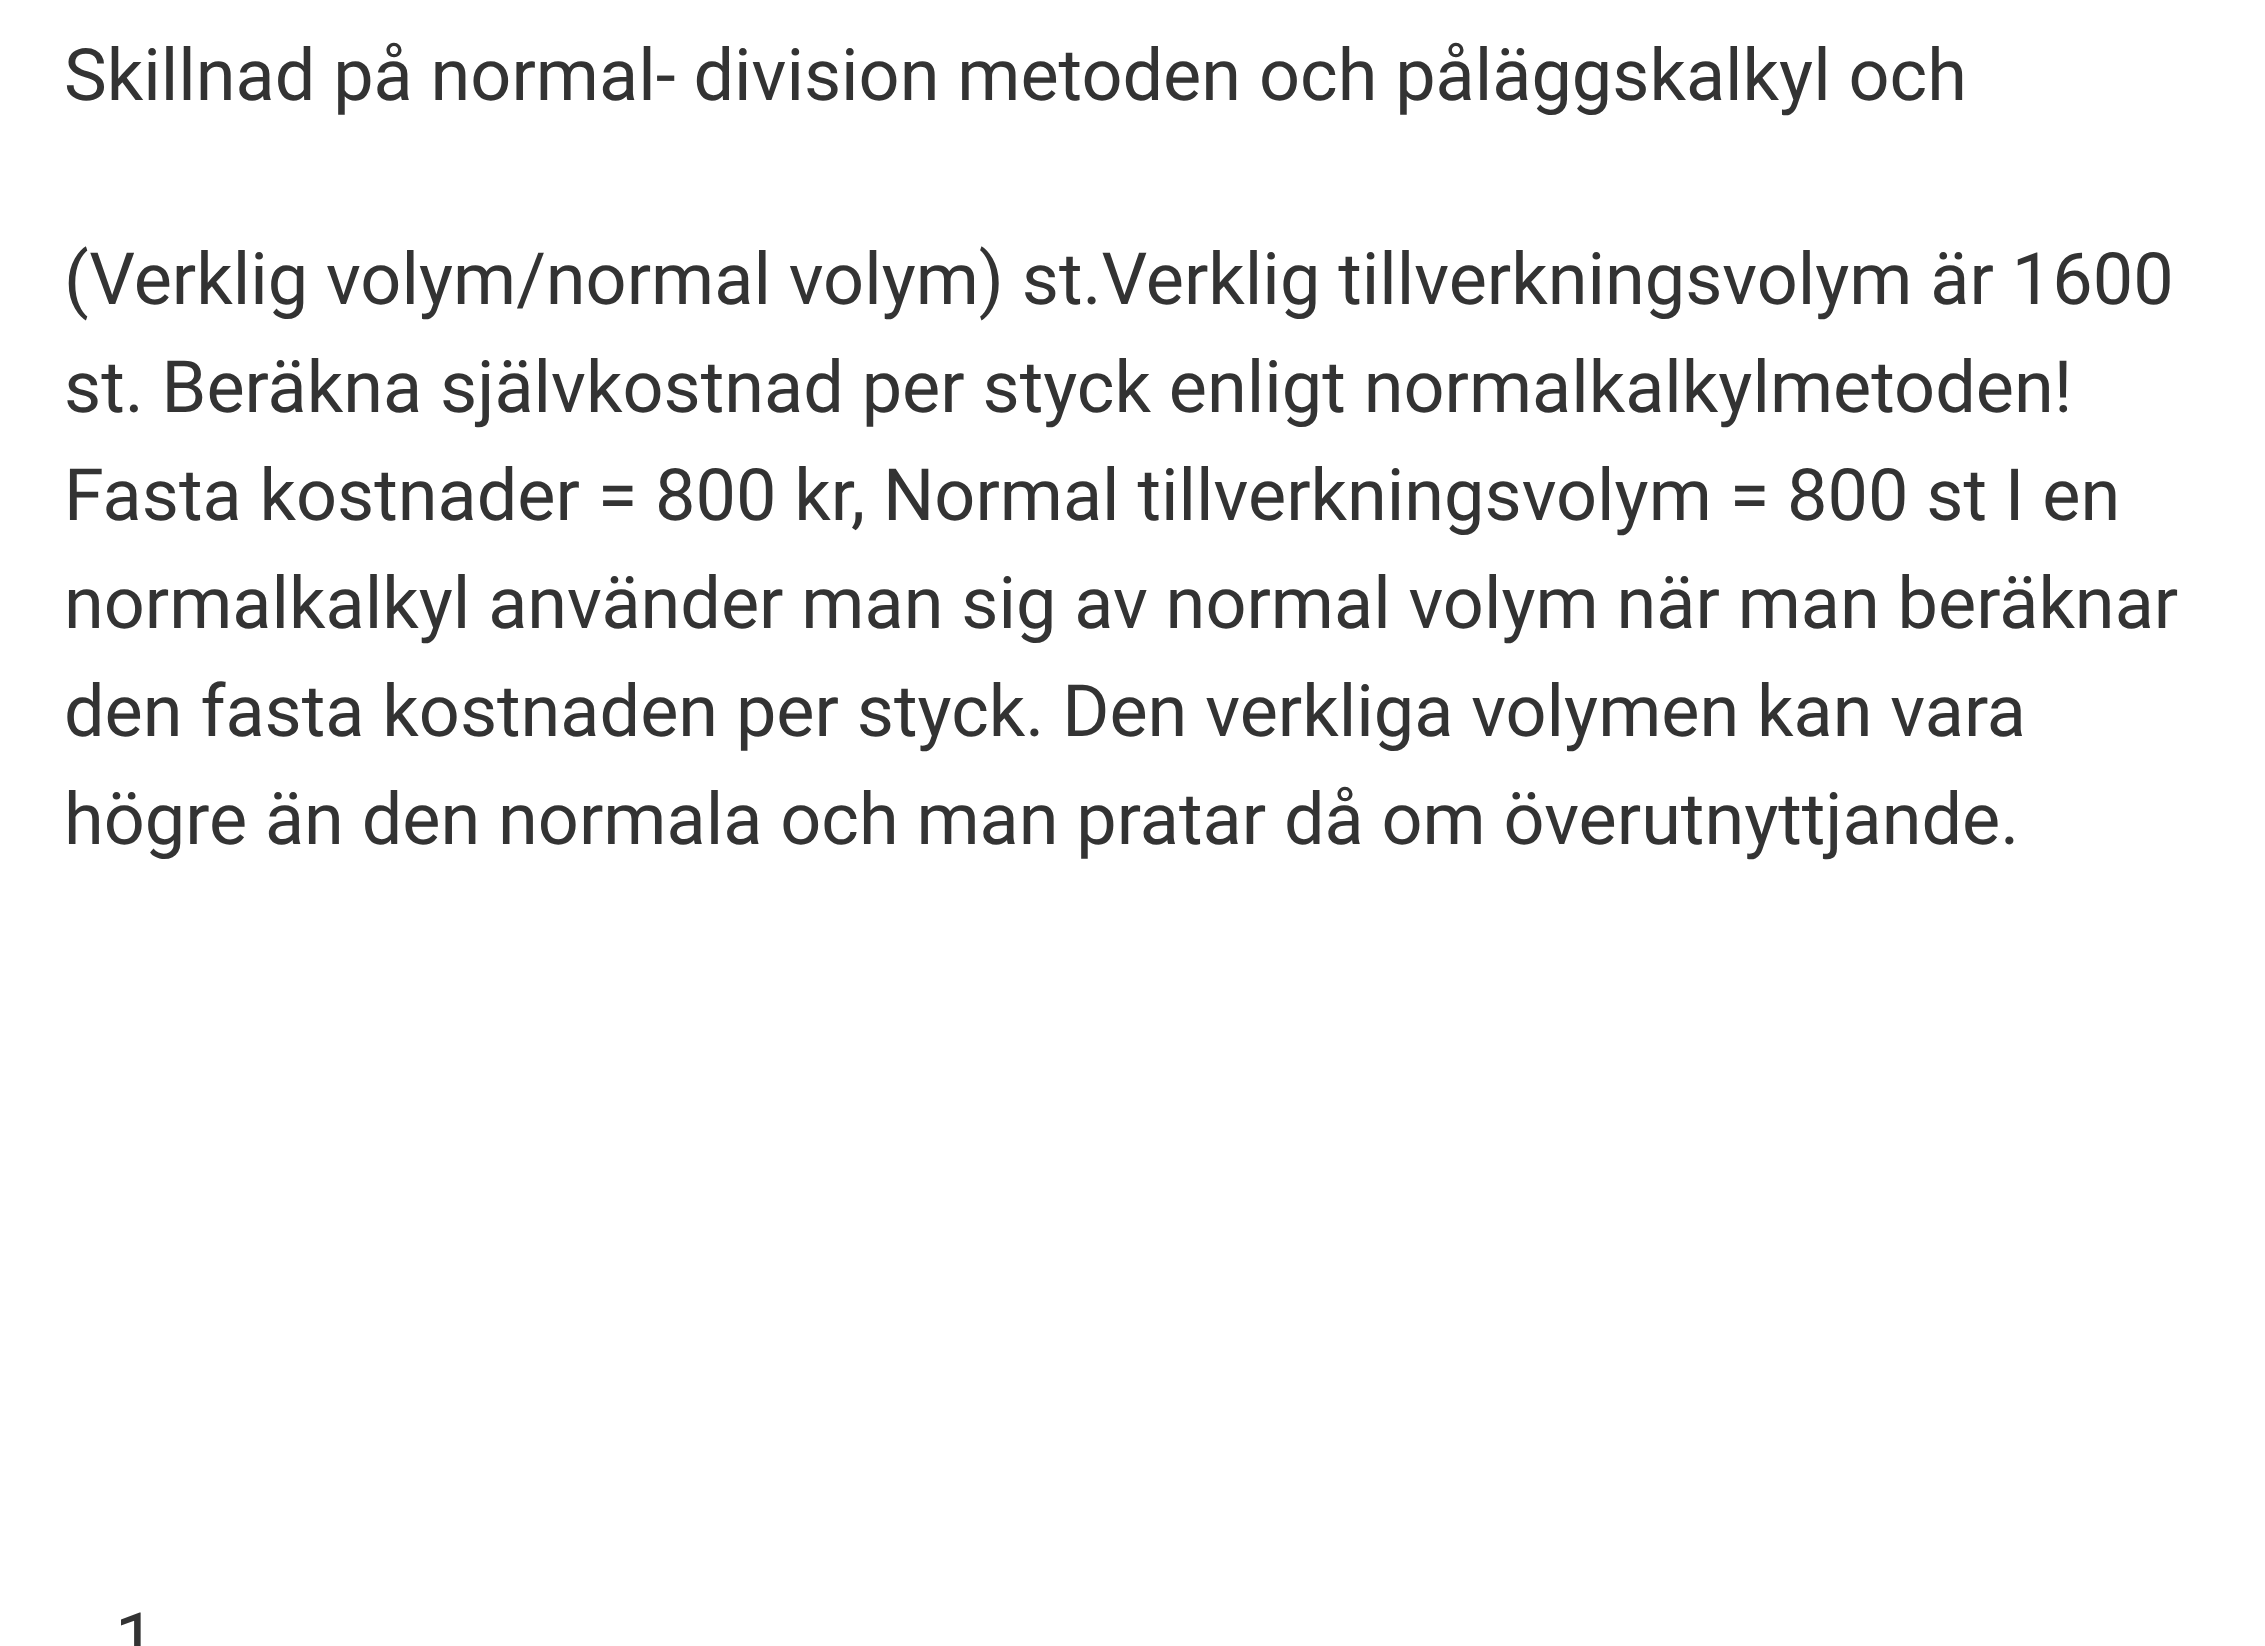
<svg xmlns="http://www.w3.org/2000/svg" width="2265" height="1646" viewBox="0 0 2265 1646">
  <rect width="100%" height="100%" fill="#fff"/>
  <g font-family="Roboto" font-size="72" fill="#333">
    <text x="64" y="100">Skillnad på normal- division metoden och påläggskalkyl och</text>
    <text x="64" y="304">(Verklig volym/normal volym) st.Verklig tillverkningsvolym är 1600</text>
    <text x="64" y="412">st. Beräkna självkostnad per styck enligt normalkalkylmetoden!</text>
    <text x="64" y="520">Fasta kostnader = 800 kr, Normal tillverkningsvolym = 800 st I en</text>
    <text x="64" y="628">normalkalkyl använder man sig av normal volym när man beräknar</text>
    <text x="64" y="736">den fasta kostnaden per styck. Den verkliga volymen kan vara</text>
    <text x="64" y="844">högre än den normala och man pratar då om överutnyttjande.</text>
    <text x="115" y="1664">1</text>
  </g>
</svg>
